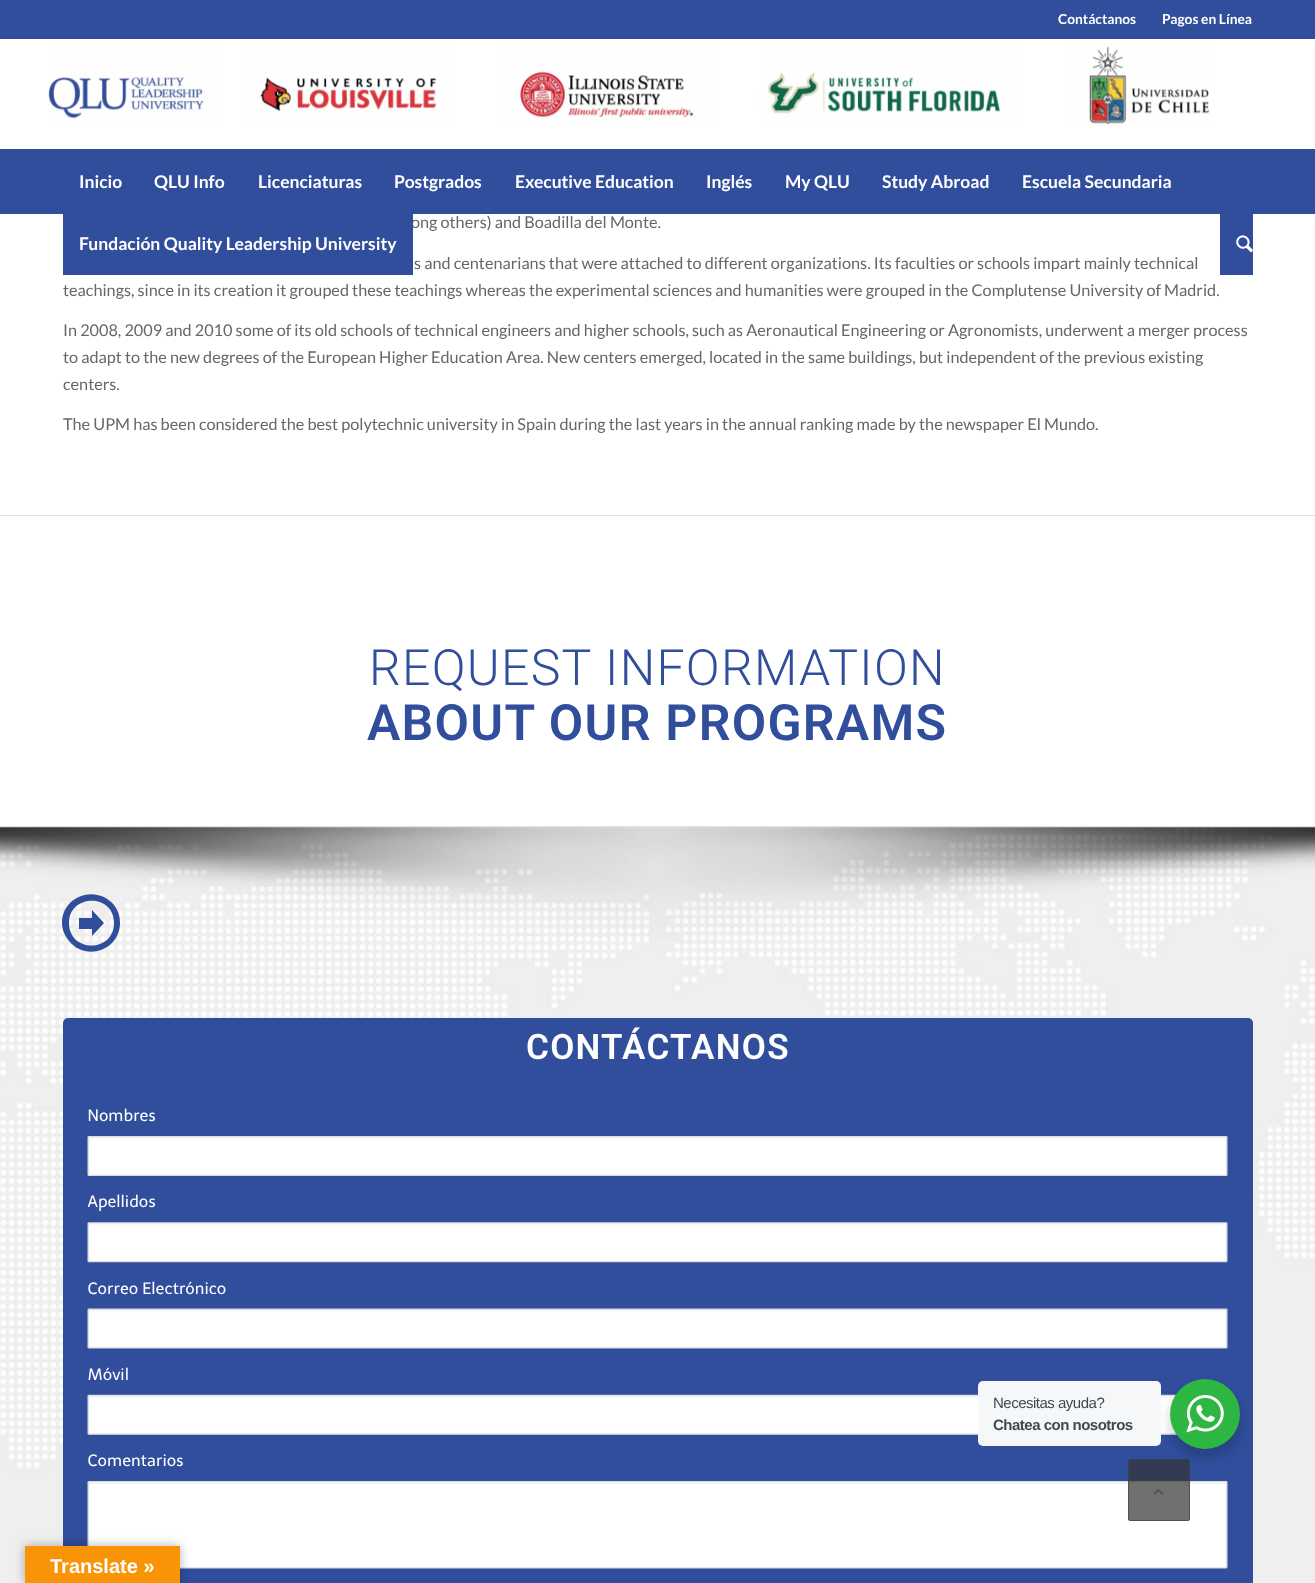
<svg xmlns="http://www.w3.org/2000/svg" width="1315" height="1583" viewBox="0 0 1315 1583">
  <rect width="100%" height="100%" fill="#fff"/>
  <path d="M0 0h1315v39H0z" fill="#304e9c"/>
  <path d="M0 149h1315v65H0z" fill="#304e9c"/>
  <image x="48" y="46" width="1161" height="79" href="img/1.png"/>
  <path d="M1220 214h33v61H1220z" fill="#304e9c"/>
  <image x="1236" y="235" width="17" height="18" href="img/2.png"/>
  <path d="M0 515h1315v1H0z" fill="#e1e1e1"/>
  <path d="M0 827h1315v756H0z" fill="#efefef"/>
  <image x="0" y="827" width="1315" height="748" href="img/3.png"/>
  <path d="M0 826h1315v1H0z" fill="#e1e1e1"/>
  <path d="M62 923C62 896 96 884 114 905C118 910 120 916 120 923C120 950 86 962 69 941C65 936 62 930 62 923ZM114 923C114 893 69 894 69 923C69 953 114 953 114 923ZM79 918H92V910L104 923L92 936V929H79Z" fill="#304e9c"/>
  <rect x="63" y="1018" width="1190" height="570" rx="5" fill="#304e9c"/>
  <image x="87" y="1108" width="1141" height="461" href="img/4.png"/>
  <rect x="1128" y="1459" width="62" height="62" rx="2.5" fill="#333333b3"/>
  <rect x="1128.5" y="1459.5" width="61" height="61" rx="2" fill="none" stroke="#444444b3"/>
  <rect x="1168" y="1384" width="75" height="75" rx="37.5" fill="#00000024" filter="blur(5px)"/>
  <rect x="978" y="1381" width="183" height="65" rx="5" fill="#f5f7f9"/>
  <circle cx="1205" cy="1414" r="35" fill="#2db742"/>
  <image x="1186" y="1395" width="38" height="38" href="img/5.png"/>
  <image x="1153" y="1489" width="10" height="6" href="img/6.png"/>
  <path d="M25 1546h155v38H25z" fill="#0000004d" filter="blur(5.5px)"/>
  <path d="M25 1546h155v37H25z" fill="#f89406"/>
  <g font-family="Lato" font-size="13.75" font-weight="bold" fill="#fff">
    <text x="1058" y="24">Contáctanos</text>
    <text x="1162" y="24">Pagos en Línea</text>
  </g>
  <g font-family="Lato" font-size="17.5" font-weight="bold" fill="#fff">
    <text x="79" y="188">Inicio</text>
    <text x="154" y="188">QLU Info</text>
    <text x="258" y="188">Licenciaturas</text>
    <text x="394" y="188">Postgrados</text>
    <text x="515" y="188">Executive Education</text>
    <text x="706" y="188">Inglés</text>
    <text x="785" y="188">My QLU</text>
    <text x="882" y="188">Study Abroad</text>
    <text x="1022" y="188">Escuela Secundaria</text>
  </g>
  <text x="411" y="228" font-family="Lato" font-size="16.25" fill="#666">ong others) and Boadilla del Monte.</text>
  <path d="M63 214h350v61H63z" fill="#304e9c"/>
  <text x="79" y="250" font-family="Lato" font-size="17.5" font-weight="bold" fill="#fff">Fundación Quality Leadership University</text>
  <g font-family="Lato" font-size="16.25" fill="#666">
    <text x="414" y="269">s and centenarians that were attached to different organizations. Its faculties or schools impart mainly technical</text>
    <text x="63" y="296">teachings, since in its creation it grouped these teachings whereas the experimental sciences and humanities were grouped in the Complutense University of Madrid.</text>
    <text x="63" y="336">In 2008, 2009 and 2010 some of its old schools of technical engineers and higher schools, such as Aeronautical Engineering or Agronomists, underwent a merger process</text>
    <text x="63" y="363">to adapt to the new degrees of the European Higher Education Area. New centers emerged, located in the same buildings, but independent of the previous existing</text>
    <text x="63" y="390">centers.</text>
    <text x="63" y="430">The UPM has been considered the best polytechnic university in Spain during the last years in the annual ranking made by the newspaper El Mundo.</text>
  </g>
  <text x="369" y="685" font-family="Roboto" font-size="50" font-weight="300" letter-spacing="1.25" fill="#304e9c">REQUEST INFORMATION</text>
  <text x="367" y="740" font-family="Roboto" font-size="50" font-weight="600" letter-spacing="1.25" fill="#304e9c">ABOUT OUR PROGRAMS</text>
  <text x="526" y="1059" font-family="Roboto" font-size="35" font-weight="600" letter-spacing="1.25" fill="#fff">CONTÁCTANOS</text>
  <text x="993" y="1408" font-family="Liberation Sans" font-size="15" letter-spacing="-0.5" fill="#43474e">Necesitas ayuda?</text>
  <text x="993" y="1430" font-family="Liberation Sans" font-size="15" font-weight="bold" letter-spacing="-0.5" fill="#43474e">Chatea con nosotros</text>
  <text x="50" y="1573" font-family="Liberation Sans" font-size="20" font-weight="bold" fill="#fff">Translate »</text>
</svg>
